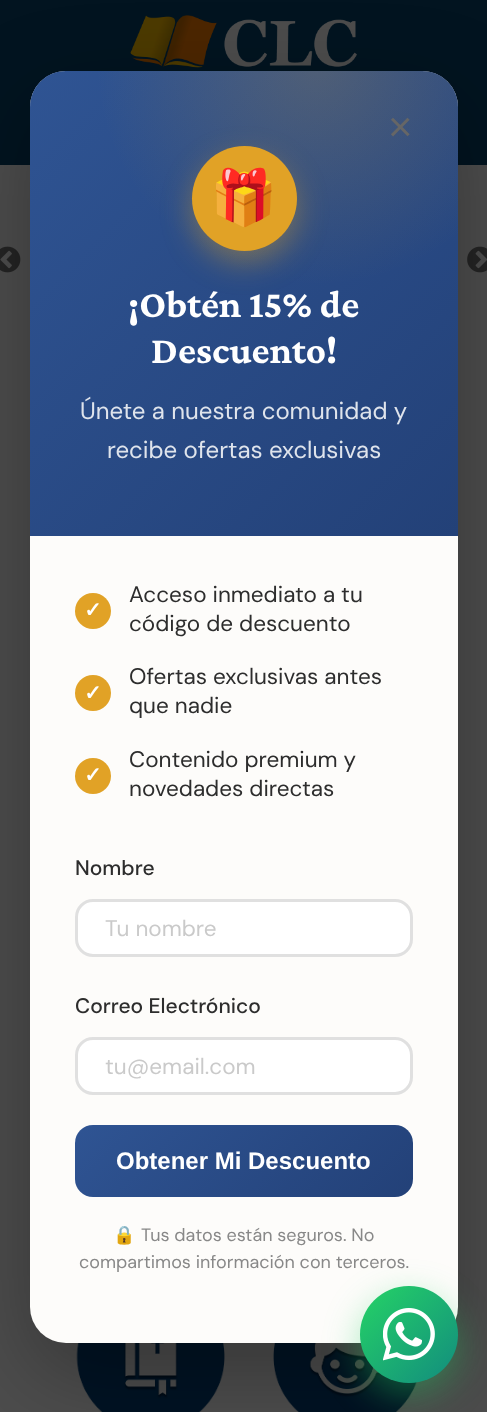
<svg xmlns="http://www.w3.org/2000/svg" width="487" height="1412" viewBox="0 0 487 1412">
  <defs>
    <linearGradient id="g1" gradientUnits="userSpaceOnUse" x1="21" y1="80" x2="467" y2="526"><stop offset="0" stop-color="#2f5493"/><stop offset="1" stop-color="#234178"/></linearGradient>
    <radialGradient id="g2" gradientUnits="userSpaceOnUse" cx="318" cy="63" r="318"><stop offset="0" stop-color="#e1a226" stop-opacity="0.2"/><stop offset="0.7" stop-color="#e1a226" stop-opacity="0"/></radialGradient>
    <linearGradient id="g3" gradientUnits="userSpaceOnUse" x1="141" y1="1059" x2="346" y2="1263"><stop offset="0" stop-color="#2f5493"/><stop offset="1" stop-color="#234178"/></linearGradient>
    <linearGradient id="g4" gradientUnits="userSpaceOnUse" x1="360" y1="1286" x2="458" y2="1383"><stop offset="0" stop-color="#25d366"/><stop offset="1" stop-color="#128c7e"/></linearGradient>
  </defs>
  <rect width="100%" height="100%" fill="#4d4d4d"/>
  <path d="M0 0h487v165H0z" fill="#021420"/>
  <image x="130" y="15" width="227" height="53" href="img/1.png"/>
  <image x="0" y="246" width="21" height="27" href="img/2.png"/>
  <image x="467" y="246" width="20" height="27" href="img/3.png"/>
  <image x="76" y="1343" width="149" height="69" href="img/4.png"/>
  <image x="273" y="1343" width="145" height="69" href="img/5.png"/>
  <rect x="30" y="101" width="428" height="1272" rx="36" fill="#0000004d" filter="blur(45px)"/>
  <rect x="30" y="71" width="428" height="1272" rx="36" fill="#fdfcfa"/>
  <path d="M66 71H422C442 71 458 87 458 107V536H30V107C30 87 46 71 66 71Z" fill="url(#g1)"/>
  <rect x="192" y="158" width="105" height="105" rx="52.5" fill="#e1a22666" filter="blur(15px)"/>
  <circle cx="244.5" cy="198.5" r="52.5" fill="#e1a226"/>
  <path d="M93 71H422C442 71 458 87 458 107V288H93Z" fill="url(#g2)"/>
  <circle cx="93" cy="611" r="18" fill="#e1a226"/>
  <circle cx="93" cy="693" r="18" fill="#e1a226"/>
  <circle cx="93" cy="776" r="18" fill="#e1a226"/>
  <rect x="76.5" y="900.5" width="335" height="55" rx="16.5" fill="#fff" stroke="#e0e0e0" stroke-width="3"/>
  <rect x="76.5" y="1038.5" width="335" height="55" rx="16.5" fill="#fff" stroke="#e0e0e0" stroke-width="3"/>
  <rect x="75" y="1125" width="338" height="72" rx="18" fill="url(#g3)"/>
  <rect x="360" y="1298" width="98" height="97" rx="48.5" fill="#25d36666" filter="blur(18px)"/>
  <rect x="360" y="1286" width="98" height="97" rx="48.5" fill="url(#g4)"/>
  <image x="383" y="1308" width="52" height="53" href="img/6.png"/>
  <text x="388" y="141" font-family="Liberation Sans" font-size="42" fill="#666">×</text>
  <text x="210" y="216" font-family="Noto Color Emoji" font-size="54" fill="#4d4d4d">🎁</text>
  <g font-family="Crimson Pro" font-size="39" font-weight="bold" fill="#fff">
    <text x="128" y="317">¡Obtén 15% de</text>
    <text x="151" y="363">Descuento!</text>
  </g>
  <g font-family="DM Sans" font-size="24" fill="#dfe4ec">
    <text x="80" y="419">Únete a nuestra comunidad y</text>
    <text x="107" y="458">recibe ofertas exclusivas</text>
  </g>
  <text x="84" y="617" font-family="DejaVu Sans" font-size="21" font-weight="bold" fill="#fff">✓</text>
  <g font-family="DM Sans" font-size="22.5" fill="#2d2d2d">
    <text x="129" y="602">Acceso inmediato a tu</text>
    <text x="129" y="631">código de descuento</text>
  </g>
  <text x="84" y="700" font-family="DejaVu Sans" font-size="21" font-weight="bold" fill="#fff">✓</text>
  <g font-family="DM Sans" font-size="22.5" fill="#2d2d2d">
    <text x="129" y="684">Ofertas exclusivas antes</text>
    <text x="129" y="713">que nadie</text>
  </g>
  <text x="84" y="782" font-family="DejaVu Sans" font-size="21" font-weight="bold" fill="#fff">✓</text>
  <g font-family="DM Sans" font-size="22.5" fill="#2d2d2d">
    <text x="129" y="767">Contenido premium y</text>
    <text x="129" y="796">novedades directas</text>
  </g>
  <text x="75" y="875" font-family="DM Sans" font-size="21" font-weight="500" fill="#2d2d2d">Nombre</text>
  <text x="105" y="936" font-family="DM Sans" font-size="22.5" fill="#cacaca">Tu nombre</text>
  <text x="75" y="1013" font-family="DM Sans" font-size="21" font-weight="500" fill="#2d2d2d">Correo Electrónico</text>
  <text x="105" y="1074" font-family="DM Sans" font-size="22.5" fill="#cacaca">tu@email.com</text>
  <text x="116" y="1169" font-family="Liberation Sans" font-size="24" font-weight="bold" fill="#fff">Obtener Mi Descuento</text>
  <text x="113" y="1241" font-family="Noto Color Emoji" font-size="18" fill="#888">🔒</text>
  <g font-family="DM Sans" font-size="18" fill="#888">
    <text x="141" y="1241">Tus datos están seguros. No</text>
    <text x="79" y="1268">compartimos información con terceros.</text>
  </g>
</svg>
